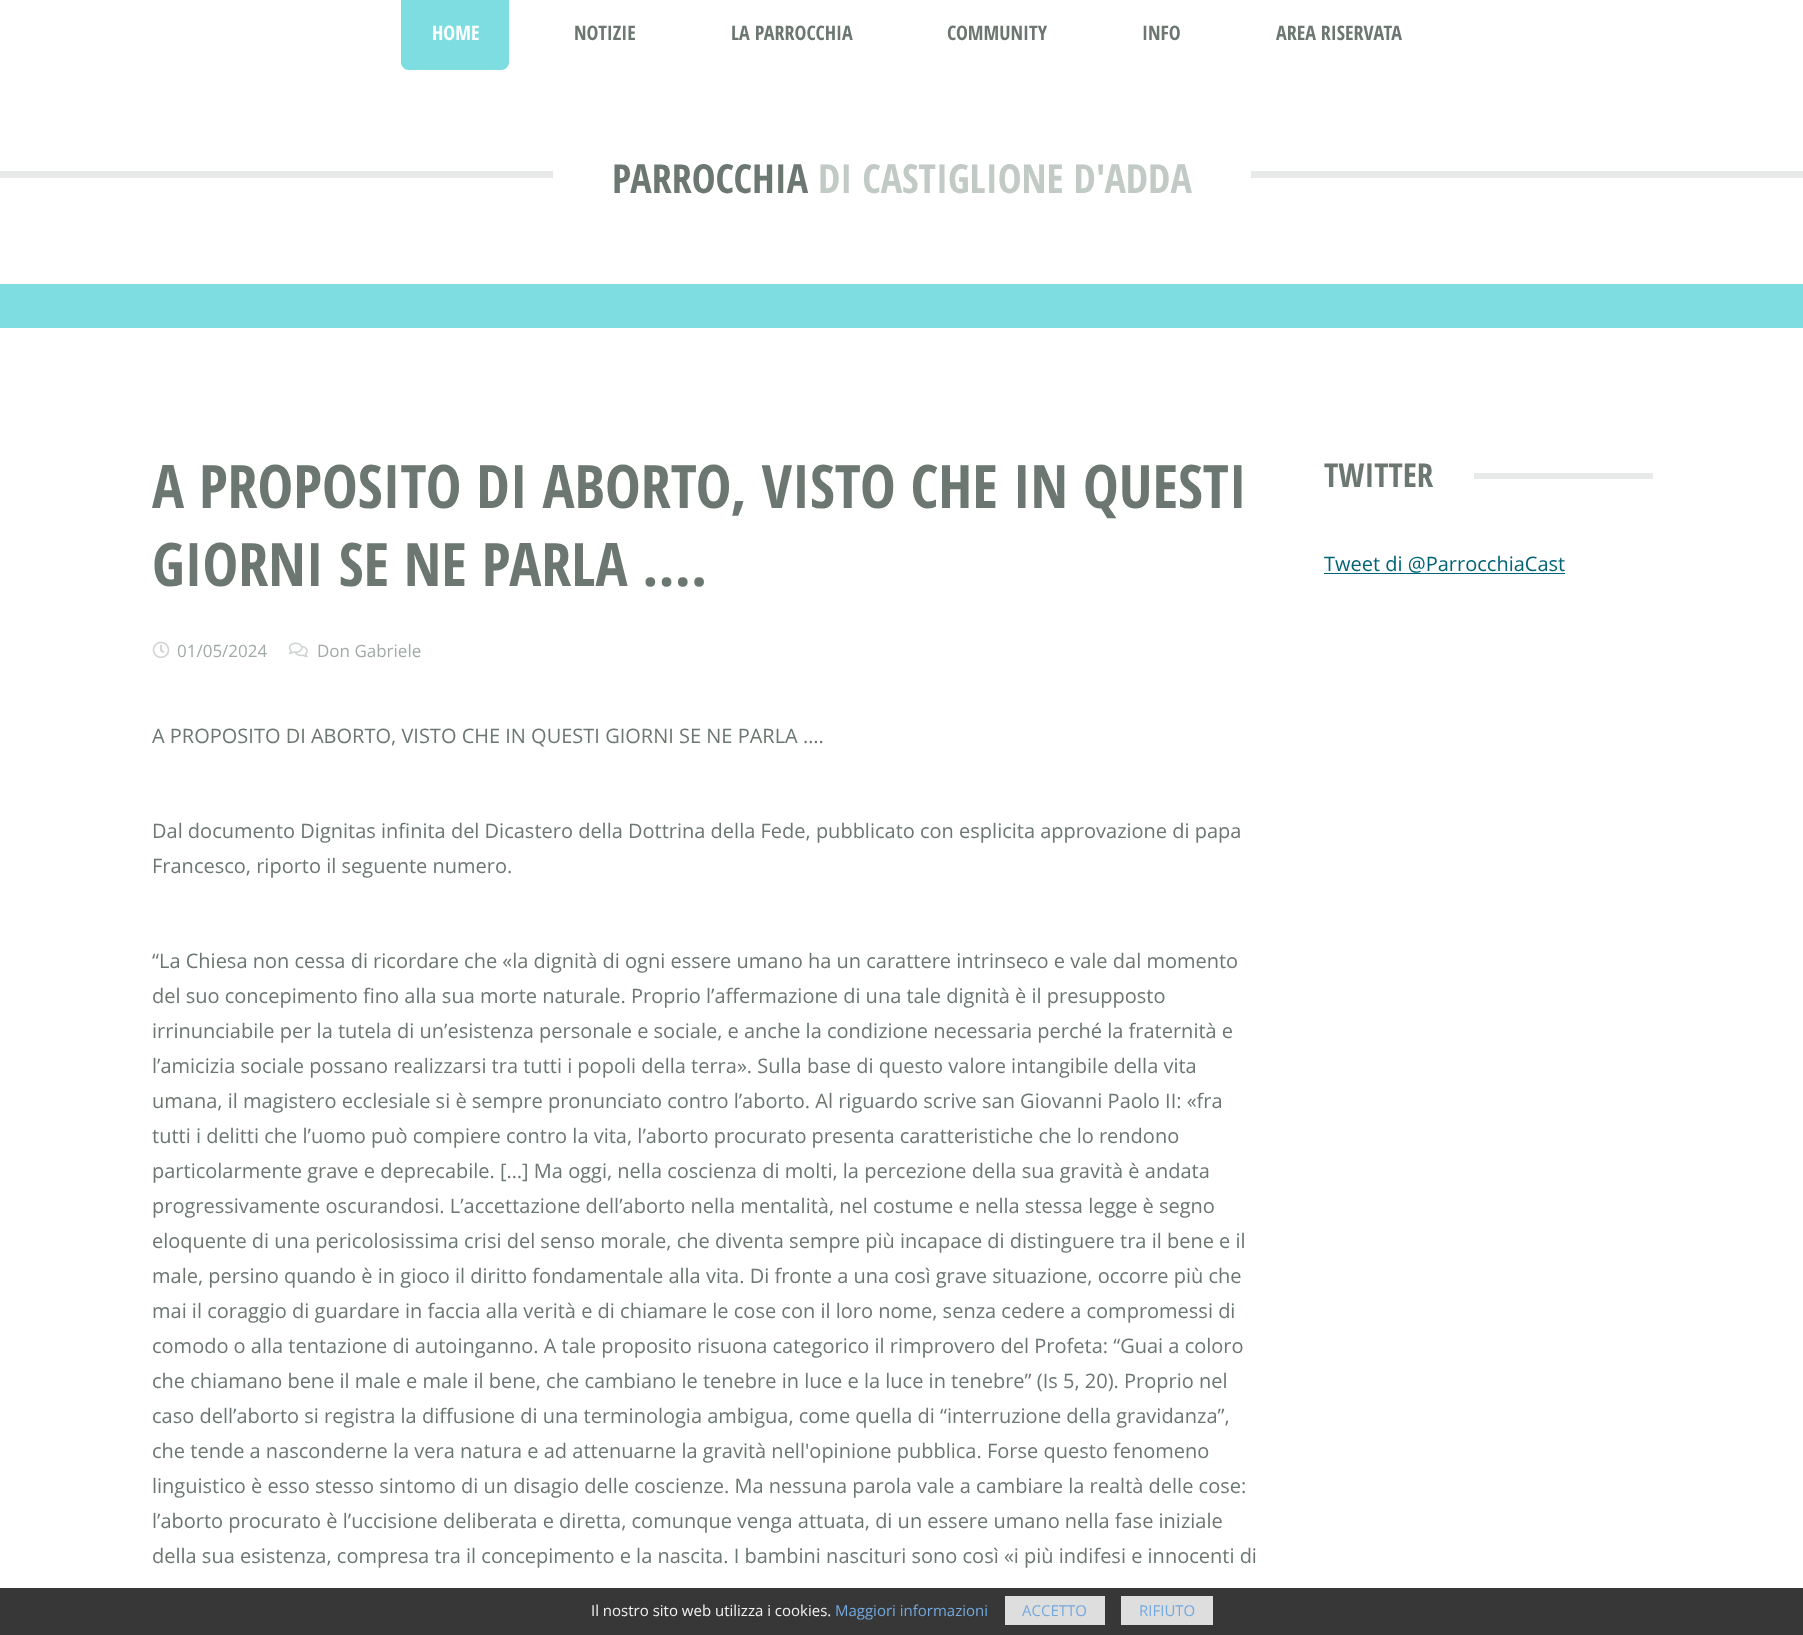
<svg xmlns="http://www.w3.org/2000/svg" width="1803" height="1635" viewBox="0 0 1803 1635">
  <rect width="100%" height="100%" fill="#fff"/>
  <path d="M401-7H509V62C509 66.5 505.5 70 501 70H409C404.5 70 401 66.5 401 62Z" fill="#7ddde0"/>
  <path d="M0 171h1803v7H0z" fill="#e7eae8"/>
  <path d="M553 171h698v7H553z" fill="#fff"/>
  <path d="M0 284h1803v44H0z" fill="#7ddde0"/>
  <image x="152" y="641" width="18" height="17" href="img/1.png"/>
  <image x="288" y="642" width="20" height="16" href="img/2.png"/>
  <path d="M1474 473h179v6H1474z" fill="#e7eae8"/>
  <path d="M1324 573h241v1H1324z" fill="#006376"/>
  <path d="M0 1588h1803v47H0z" fill="#212121e6"/>
  <path d="M1005 1596h100v29H1005z" fill="#f1f1f1e6"/>
  <path d="M1121 1596h92v29H1121z" fill="#f1f1f1e6"/>
  <text x="432" y="40" font-family="Open Sans Condensed" font-size="20" font-weight="bold" fill="#fff">HOME</text>
  <g font-family="Open Sans Condensed" font-size="20" font-weight="bold" fill="#6b7770">
    <text x="574" y="40">NOTIZIE</text>
    <text x="731" y="40">LA PARROCCHIA</text>
    <text x="947" y="40">COMMUNITY</text>
    <text x="1142" y="40">INFO</text>
    <text x="1276" y="40">AREA RISERVATA</text>
  </g>
  <text x="612" y="193" font-family="Open Sans Condensed" font-size="40" font-weight="bold" fill="#6b7770">PARROCCHIA</text>
  <text x="818" y="193" font-family="Open Sans Condensed" font-size="40" font-weight="bold" fill="#c1cac5">DI CASTIGLIONE D'ADDA</text>
  <g font-family="Open Sans Condensed" font-size="60" font-weight="bold" fill="#6b7770">
    <text x="152" y="508">A PROPOSITO DI ABORTO, VISTO CHE IN QUESTI</text>
    <text x="152" y="586">GIORNI SE NE PARLA ….</text>
  </g>
  <g font-family="Open Sans" font-size="17" fill="#a1aaa5">
    <text x="177" y="657">01/05/2024</text>
    <text x="317" y="657">Don Gabriele</text>
  </g>
  <g font-family="Open Sans" font-size="20" fill="#6b7770">
    <text x="152" y="743">A PROPOSITO DI ABORTO, VISTO CHE IN QUESTI GIORNI SE NE PARLA ….</text>
    <text x="152" y="838">Dal documento Dignitas infinita del Dicastero della Dottrina della Fede, pubblicato con esplicita approvazione di papa</text>
    <text x="152" y="873">Francesco, riporto il seguente numero.</text>
    <text x="152" y="968">“La Chiesa non cessa di ricordare che «la dignità di ogni essere umano ha un carattere intrinseco e vale dal momento</text>
    <text x="152" y="1003">del suo concepimento fino alla sua morte naturale. Proprio l’affermazione di una tale dignità è il presupposto</text>
    <text x="152" y="1038">irrinunciabile per la tutela di un’esistenza personale e sociale, e anche la condizione necessaria perché la fraternità e</text>
    <text x="152" y="1073">l’amicizia sociale possano realizzarsi tra tutti i popoli della terra». Sulla base di questo valore intangibile della vita</text>
    <text x="152" y="1108">umana, il magistero ecclesiale si è sempre pronunciato contro l’aborto. Al riguardo scrive san Giovanni Paolo II: «fra</text>
    <text x="152" y="1143">tutti i delitti che l’uomo può compiere contro la vita, l’aborto procurato presenta caratteristiche che lo rendono</text>
    <text x="152" y="1178">particolarmente grave e deprecabile. […] Ma oggi, nella coscienza di molti, la percezione della sua gravità è andata</text>
    <text x="152" y="1213">progressivamente oscurandosi. L’accettazione dell’aborto nella mentalità, nel costume e nella stessa legge è segno</text>
    <text x="152" y="1248">eloquente di una pericolosissima crisi del senso morale, che diventa sempre più incapace di distinguere tra il bene e il</text>
    <text x="152" y="1283">male, persino quando è in gioco il diritto fondamentale alla vita. Di fronte a una così grave situazione, occorre più che</text>
    <text x="152" y="1318">mai il coraggio di guardare in faccia alla verità e di chiamare le cose con il loro nome, senza cedere a compromessi di</text>
    <text x="152" y="1353">comodo o alla tentazione di autoinganno. A tale proposito risuona categorico il rimprovero del Profeta: “Guai a coloro</text>
    <text x="152" y="1388">che chiamano bene il male e male il bene, che cambiano le tenebre in luce e la luce in tenebre” (Is 5, 20). Proprio nel</text>
    <text x="152" y="1423">caso dell’aborto si registra la diffusione di una terminologia ambigua, come quella di “interruzione della gravidanza”,</text>
    <text x="152" y="1458">che tende a nasconderne la vera natura e ad attenuarne la gravità nell'opinione pubblica. Forse questo fenomeno</text>
    <text x="152" y="1493">linguistico è esso stesso sintomo di un disagio delle coscienze. Ma nessuna parola vale a cambiare la realtà delle cose:</text>
    <text x="152" y="1528">l’aborto procurato è l’uccisione deliberata e diretta, comunque venga attuata, di un essere umano nella fase iniziale</text>
    <text x="152" y="1563">della sua esistenza, compresa tra il concepimento e la nascita. I bambini nascituri sono così «i più indifesi e innocenti di</text>
  </g>
  <text x="1324" y="487" font-family="Open Sans Condensed" font-size="33" font-weight="bold" fill="#6b7770">TWITTER</text>
  <text x="1324" y="571" font-family="Open Sans" font-size="20" fill="#006376">Tweet di @ParrocchiaCast</text>
  <text x="591" y="1616" font-family="Open Sans" font-size="15" fill="#f2f2f2">Il nostro sito web utilizza i cookies.</text>
  <g font-family="Open Sans" font-size="15" fill="#74a9de">
    <text x="835" y="1616">Maggiori informazioni</text>
    <text x="1022" y="1616">ACCETTO</text>
    <text x="1139" y="1616">RIFIUTO</text>
  </g>
</svg>
